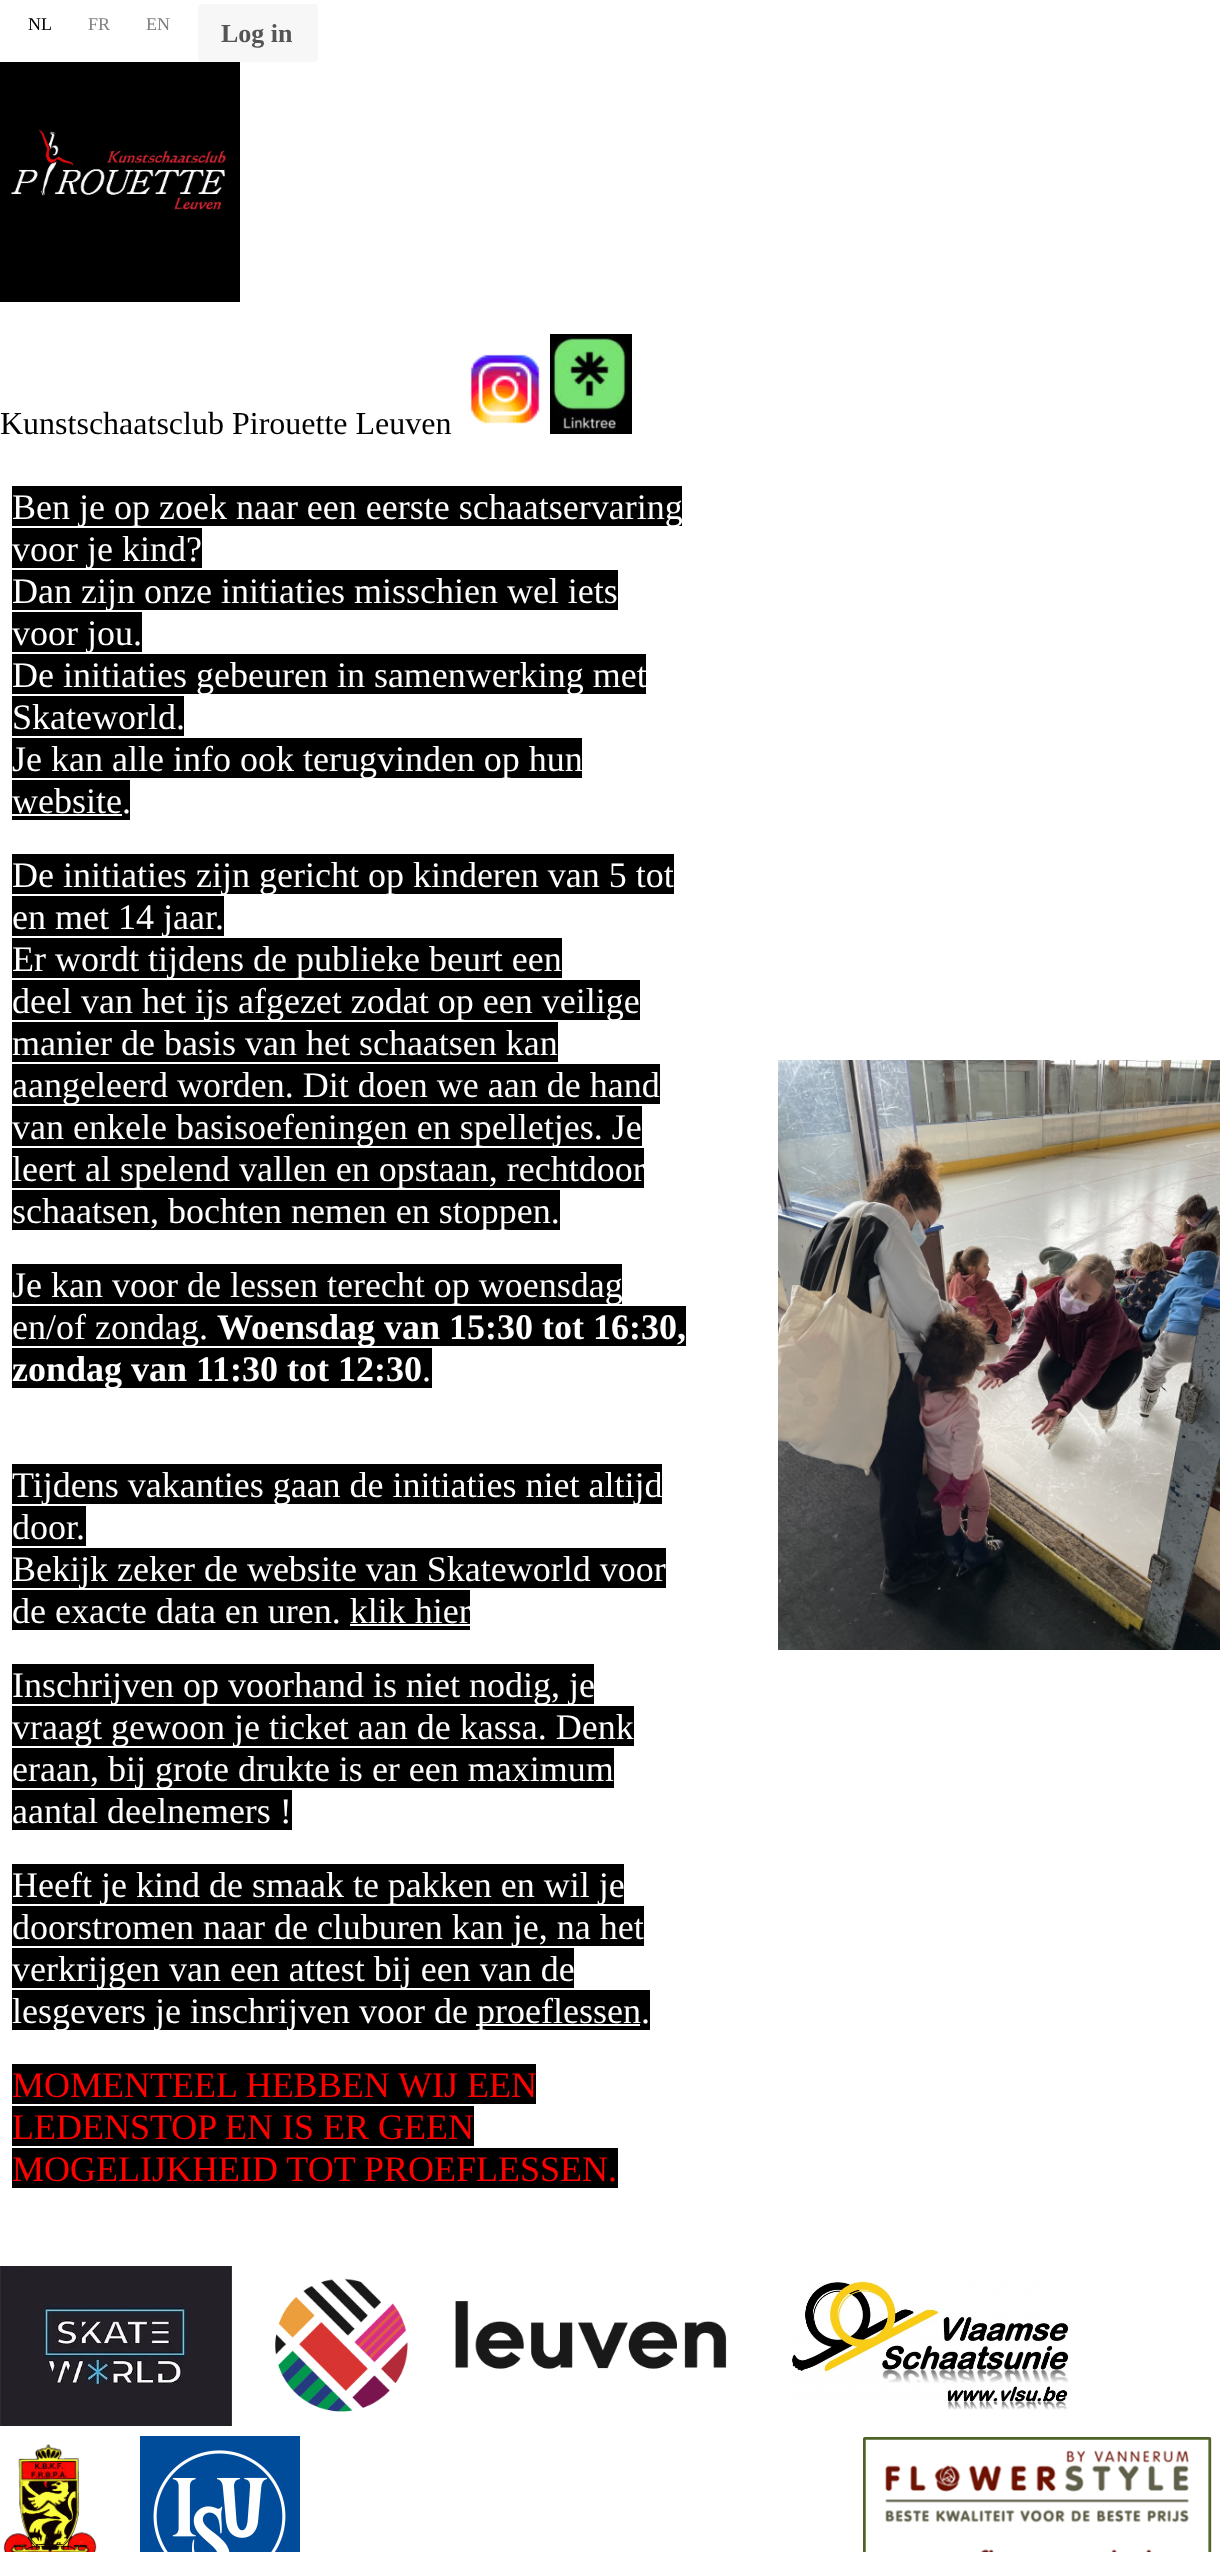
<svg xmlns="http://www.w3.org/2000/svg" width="1232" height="2552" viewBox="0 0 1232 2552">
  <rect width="100%" height="100%" fill="#fff"/>
  <rect x="198" y="4" width="120" height="58" rx="4" fill="#f7f7f7"/>
  <image x="0" y="62" width="240" height="240" href="img/1.png"/>
  <image x="470" y="354" width="70" height="70" href="img/2.png"/>
  <image x="550" y="334" width="82" height="100" href="img/3.png"/>
  <path d="M12 486h670v40H12z" fill="#000"/>
  <path d="M12 528h190v40H12z" fill="#000"/>
  <path d="M12 570h606v40H12z" fill="#000"/>
  <path d="M12 612h130v40H12z" fill="#000"/>
  <path d="M12 654h634v40H12z" fill="#000"/>
  <path d="M12 696h172v40H12z" fill="#000"/>
  <path d="M12 738h570v40H12z" fill="#000"/>
  <path d="M12 780h118v40H12z" fill="#000"/>
  <path d="M12 814h110v2H12z" fill="#fff"/>
  <path d="M12 854h662v40H12z" fill="#000"/>
  <path d="M12 896h212v40H12z" fill="#000"/>
  <path d="M12 938h550v40H12z" fill="#000"/>
  <path d="M12 980h628v40H12z" fill="#000"/>
  <path d="M12 1022h546v40H12z" fill="#000"/>
  <path d="M12 1064h648v40H12z" fill="#000"/>
  <path d="M12 1106h630v40H12z" fill="#000"/>
  <path d="M12 1148h632v40H12z" fill="#000"/>
  <path d="M12 1190h548v40H12z" fill="#000"/>
  <path d="M12 1264h610v40H12z" fill="#000"/>
  <path d="M12 1306h674v40H12z" fill="#000"/>
  <path d="M12 1348h420v40H12z" fill="#000"/>
  <path d="M12 1464h650v40H12z" fill="#000"/>
  <path d="M12 1506h74v40H12z" fill="#000"/>
  <path d="M12 1548h654v40H12z" fill="#000"/>
  <path d="M12 1590h458v40H12z" fill="#000"/>
  <path d="M350 1624h120v2H350z" fill="#fff"/>
  <path d="M12 1664h582v40H12z" fill="#000"/>
  <path d="M12 1706h622v40H12z" fill="#000"/>
  <path d="M12 1748h602v40H12z" fill="#000"/>
  <path d="M12 1790h280v40H12z" fill="#000"/>
  <path d="M12 1864h612v40H12z" fill="#000"/>
  <path d="M12 1906h632v40H12z" fill="#000"/>
  <path d="M12 1948h562v40H12z" fill="#000"/>
  <path d="M12 1990h638v40H12z" fill="#000"/>
  <path d="M476 2024h164v2H476z" fill="#fff"/>
  <path d="M12 2064h524v40H12z" fill="#000"/>
  <path d="M12 2106h462v40H12z" fill="#000"/>
  <path d="M12 2148h606v40H12z" fill="#000"/>
  <image x="778" y="1060" width="442" height="590" href="img/4.png"/>
  <image x="0" y="2266" width="232" height="160" href="img/5.png"/>
  <image x="275" y="2278" width="452" height="134" href="img/6.png"/>
  <image x="792" y="2279" width="277" height="131" href="img/7.png"/>
  <image x="3" y="2444" width="94" height="108" href="img/8.png"/>
  <image x="140" y="2436" width="160" height="116" href="img/9.png"/>
  <image x="863" y="2437" width="349" height="115" href="img/10.png"/>
  <text x="28" y="30" font-family="Liberation Serif" font-size="18" fill="#000">NL</text>
  <g font-family="Liberation Serif" font-size="18" fill="#808080">
    <text x="88" y="30">FR</text>
    <text x="146" y="30">EN</text>
  </g>
  <text x="221" y="42" font-family="Liberation Serif" font-size="26" font-weight="bold" fill="#555">Log in</text>
  <text x="0" y="434" font-family="Liberation Serif" font-size="32" fill="#000">Kunstschaatsclub Pirouette Leuven</text>
  <g font-family="Liberation Serif" font-size="36" fill="#fff">
    <text x="12" y="519">Ben je op zoek naar een eerste schaatservaring</text>
    <text x="12" y="561">voor je kind?</text>
    <text x="12" y="603">Dan zijn onze initiaties misschien wel iets</text>
    <text x="12" y="645">voor jou.</text>
    <text x="12" y="687">De initiaties gebeuren in samenwerking met</text>
    <text x="12" y="729">Skateworld.</text>
    <text x="12" y="771">Je kan alle info ook terugvinden op hun</text>
    <text x="12" y="813">website.</text>
    <text x="12" y="887">De initiaties zijn gericht op kinderen van 5 tot</text>
    <text x="12" y="929">en met 14 jaar.</text>
    <text x="12" y="971">Er wordt tijdens de publieke beurt een</text>
    <text x="12" y="1013">deel van het ijs afgezet zodat op een veilige</text>
    <text x="12" y="1055">manier de basis van het schaatsen kan</text>
    <text x="12" y="1097">aangeleerd worden. Dit doen we aan de hand</text>
    <text x="12" y="1139">van enkele basisoefeningen en spelletjes. Je</text>
    <text x="12" y="1181">leert al spelend vallen en opstaan, rechtdoor</text>
    <text x="12" y="1223">schaatsen, bochten nemen en stoppen.</text>
    <text x="12" y="1297">Je kan voor de lessen terecht op woensdag</text>
    <text x="12" y="1339">en/of zondag.</text>
  </g>
  <g font-family="Liberation Serif" font-size="36" font-weight="bold" fill="#fff">
    <text x="217" y="1339">Woensdag van 15:30 tot 16:30,</text>
    <text x="12" y="1381">zondag van 11:30 tot 12:30</text>
  </g>
  <g font-family="Liberation Serif" font-size="36" fill="#fff">
    <text x="422" y="1381">.</text>
    <text x="12" y="1497">Tijdens vakanties gaan de initiaties niet altijd</text>
    <text x="12" y="1539">door.</text>
    <text x="12" y="1581">Bekijk zeker de website van Skateworld voor</text>
    <text x="12" y="1623">de exacte data en uren. klik hier</text>
    <text x="12" y="1697">Inschrijven op voorhand is niet nodig, je</text>
    <text x="12" y="1739">vraagt gewoon je ticket aan de kassa. Denk</text>
    <text x="12" y="1781">eraan, bij grote drukte is er een maximum</text>
    <text x="12" y="1823">aantal deelnemers !</text>
    <text x="12" y="1897">Heeft je kind de smaak te pakken en wil je</text>
    <text x="12" y="1939">doorstromen naar de cluburen kan je, na het</text>
    <text x="12" y="1981">verkrijgen van een attest bij een van de</text>
    <text x="12" y="2023">lesgevers je inschrijven voor de</text>
    <text x="477" y="2023">proeflessen.</text>
  </g>
  <g font-family="Liberation Serif" font-size="36" fill="#f00">
    <text x="12" y="2097">MOMENTEEL HEBBEN WIJ EEN</text>
    <text x="12" y="2139">LEDENSTOP EN IS ER GEEN</text>
    <text x="12" y="2181">MOGELIJKHEID TOT PROEFLESSEN.</text>
  </g>
</svg>
